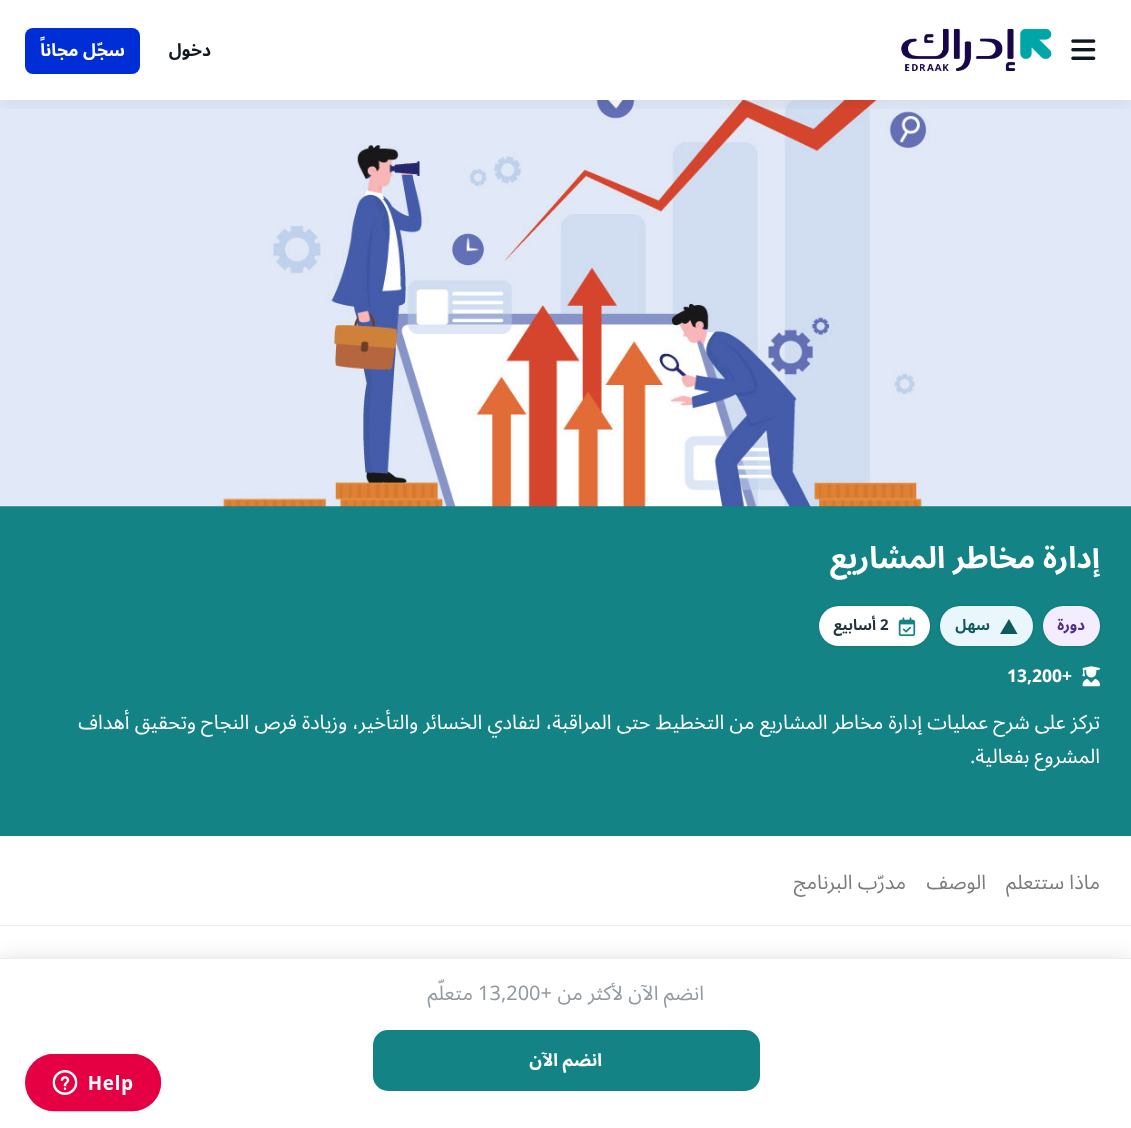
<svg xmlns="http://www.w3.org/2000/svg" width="1131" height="1128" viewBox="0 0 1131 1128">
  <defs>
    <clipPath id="clip1"><path d="M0 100h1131v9H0z"/></clipPath>
  </defs>
  <rect width="100%" height="100%" fill="#fff"/>
  <path d="M0 506h1131v330H0z" fill="#138385"/>
  <image x="0" y="100" width="1131" height="407" href="img/3.png"/>
  <g clip-path="url(#clip1)">
    <path d="M0 5h1131v100H0z" fill="#0000000f" filter="blur(10px)"/>
  </g>
  <image x="1071" y="39" width="25" height="21" href="img/1.png"/>
  <image x="901" y="28" width="151" height="43" href="img/2.png"/>
  <rect x="25" y="28" width="115" height="46" rx="8" fill="#002ed6"/>
  <rect x="1043" y="606" width="57" height="40" rx="20" fill="#00000026" filter="blur(1px)"/>
  <rect x="1043" y="606" width="57" height="40" rx="20" fill="#f4edff"/>
  <rect x="940" y="606" width="93" height="40" rx="20" fill="#00000026" filter="blur(1px)"/>
  <rect x="940" y="606" width="93" height="40" rx="20" fill="#e9f6fb"/>
  <path d="M1009 619L1017.5 634H1000Z" fill="#0e5a5d"/>
  <rect x="819" y="606" width="111" height="40" rx="20" fill="#00000026" filter="blur(1px)"/>
  <rect x="819" y="606" width="111" height="40" rx="20" fill="#fff"/>
  <image x="898" y="617" width="18" height="20" href="img/4.png"/>
  <image x="1082" y="666" width="18" height="21" href="img/5.png"/>
  <path d="M0 925h1131v1H0z" fill="#eee"/>
  <path d="M0 964h1131v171H0z" fill="#00000033" filter="blur(12.5px)"/>
  <path d="M0 959h1131v169H0z" fill="#fff"/>
  <path d="M0 958h1131v1H0z" fill="#eee"/>
  <rect x="373" y="1030" width="387" height="61" rx="15" fill="#138385"/>
  <image x="25" y="1054" width="137" height="58" href="img/6.png"/>
  <text x="211" y="56" font-family="Noto Sans Arabic" font-size="17.5" font-weight="bold" direction="rtl" fill="#0f1820">دخول</text>
  <text x="125" y="56" font-family="Noto Sans Arabic" font-size="17.5" font-weight="bold" direction="rtl" fill="#fff">سجّل مجاناً</text>
  <text x="1100" y="568" font-family="Noto Sans Arabic" font-size="30" font-weight="bold" direction="rtl" fill="#fff">إدارة مخاطر المشاريع</text>
  <text x="1085" y="630" font-family="Noto Sans Arabic" font-size="15" font-weight="bold" direction="rtl" fill="#512e8c">دورة</text>
  <text x="990" y="630" font-family="Noto Sans Arabic" font-size="15" font-weight="bold" direction="rtl" fill="#0e5a5d">سهل</text>
  <text x="880" y="630" font-family="Noto Sans Arabic" font-size="15" font-weight="bold" fill="#24343f">2</text>
  <text x="876" y="630" font-family="Noto Sans Arabic" font-size="15" font-weight="bold" direction="rtl" fill="#24343f">أسابيع</text>
  <text x="1007" y="682" font-family="Noto Sans Arabic" font-size="17.5" font-weight="bold" fill="#fff">13,200+</text>
  <g font-family="Noto Sans Arabic" font-size="20" direction="rtl" fill="#fff">
    <text x="1100" y="729">تركز على شرح عمليات إدارة مخاطر المشاريع من التخطيط حتى المراقبة، لتفادي الخسائر والتأخير، وزيادة فرص النجاح وتحقيق أهداف</text>
    <text x="1100" y="763">المشروع بفعالية.</text>
  </g>
  <g font-family="Noto Sans Arabic" font-size="20" direction="rtl" fill="#7b7b7b">
    <text x="1100" y="889">ماذا ستتعلم</text>
    <text x="986" y="889">الوصف</text>
    <text x="906" y="889">مدرّب البرنامج</text>
  </g>
  <text x="704" y="1000" font-family="Noto Sans Arabic" font-size="20" direction="rtl" fill="#929a9f">انضم الآن لأكثر من</text>
  <text x="478" y="1000" font-family="Noto Sans Arabic" font-size="20" fill="#929a9f">13,200+</text>
  <text x="473" y="1000" font-family="Noto Sans Arabic" font-size="20" direction="rtl" fill="#929a9f">متعلّم</text>
  <text x="602" y="1066" font-family="Noto Sans Arabic" font-size="17.5" font-weight="bold" direction="rtl" fill="#fff">انضم الآن</text>
</svg>
